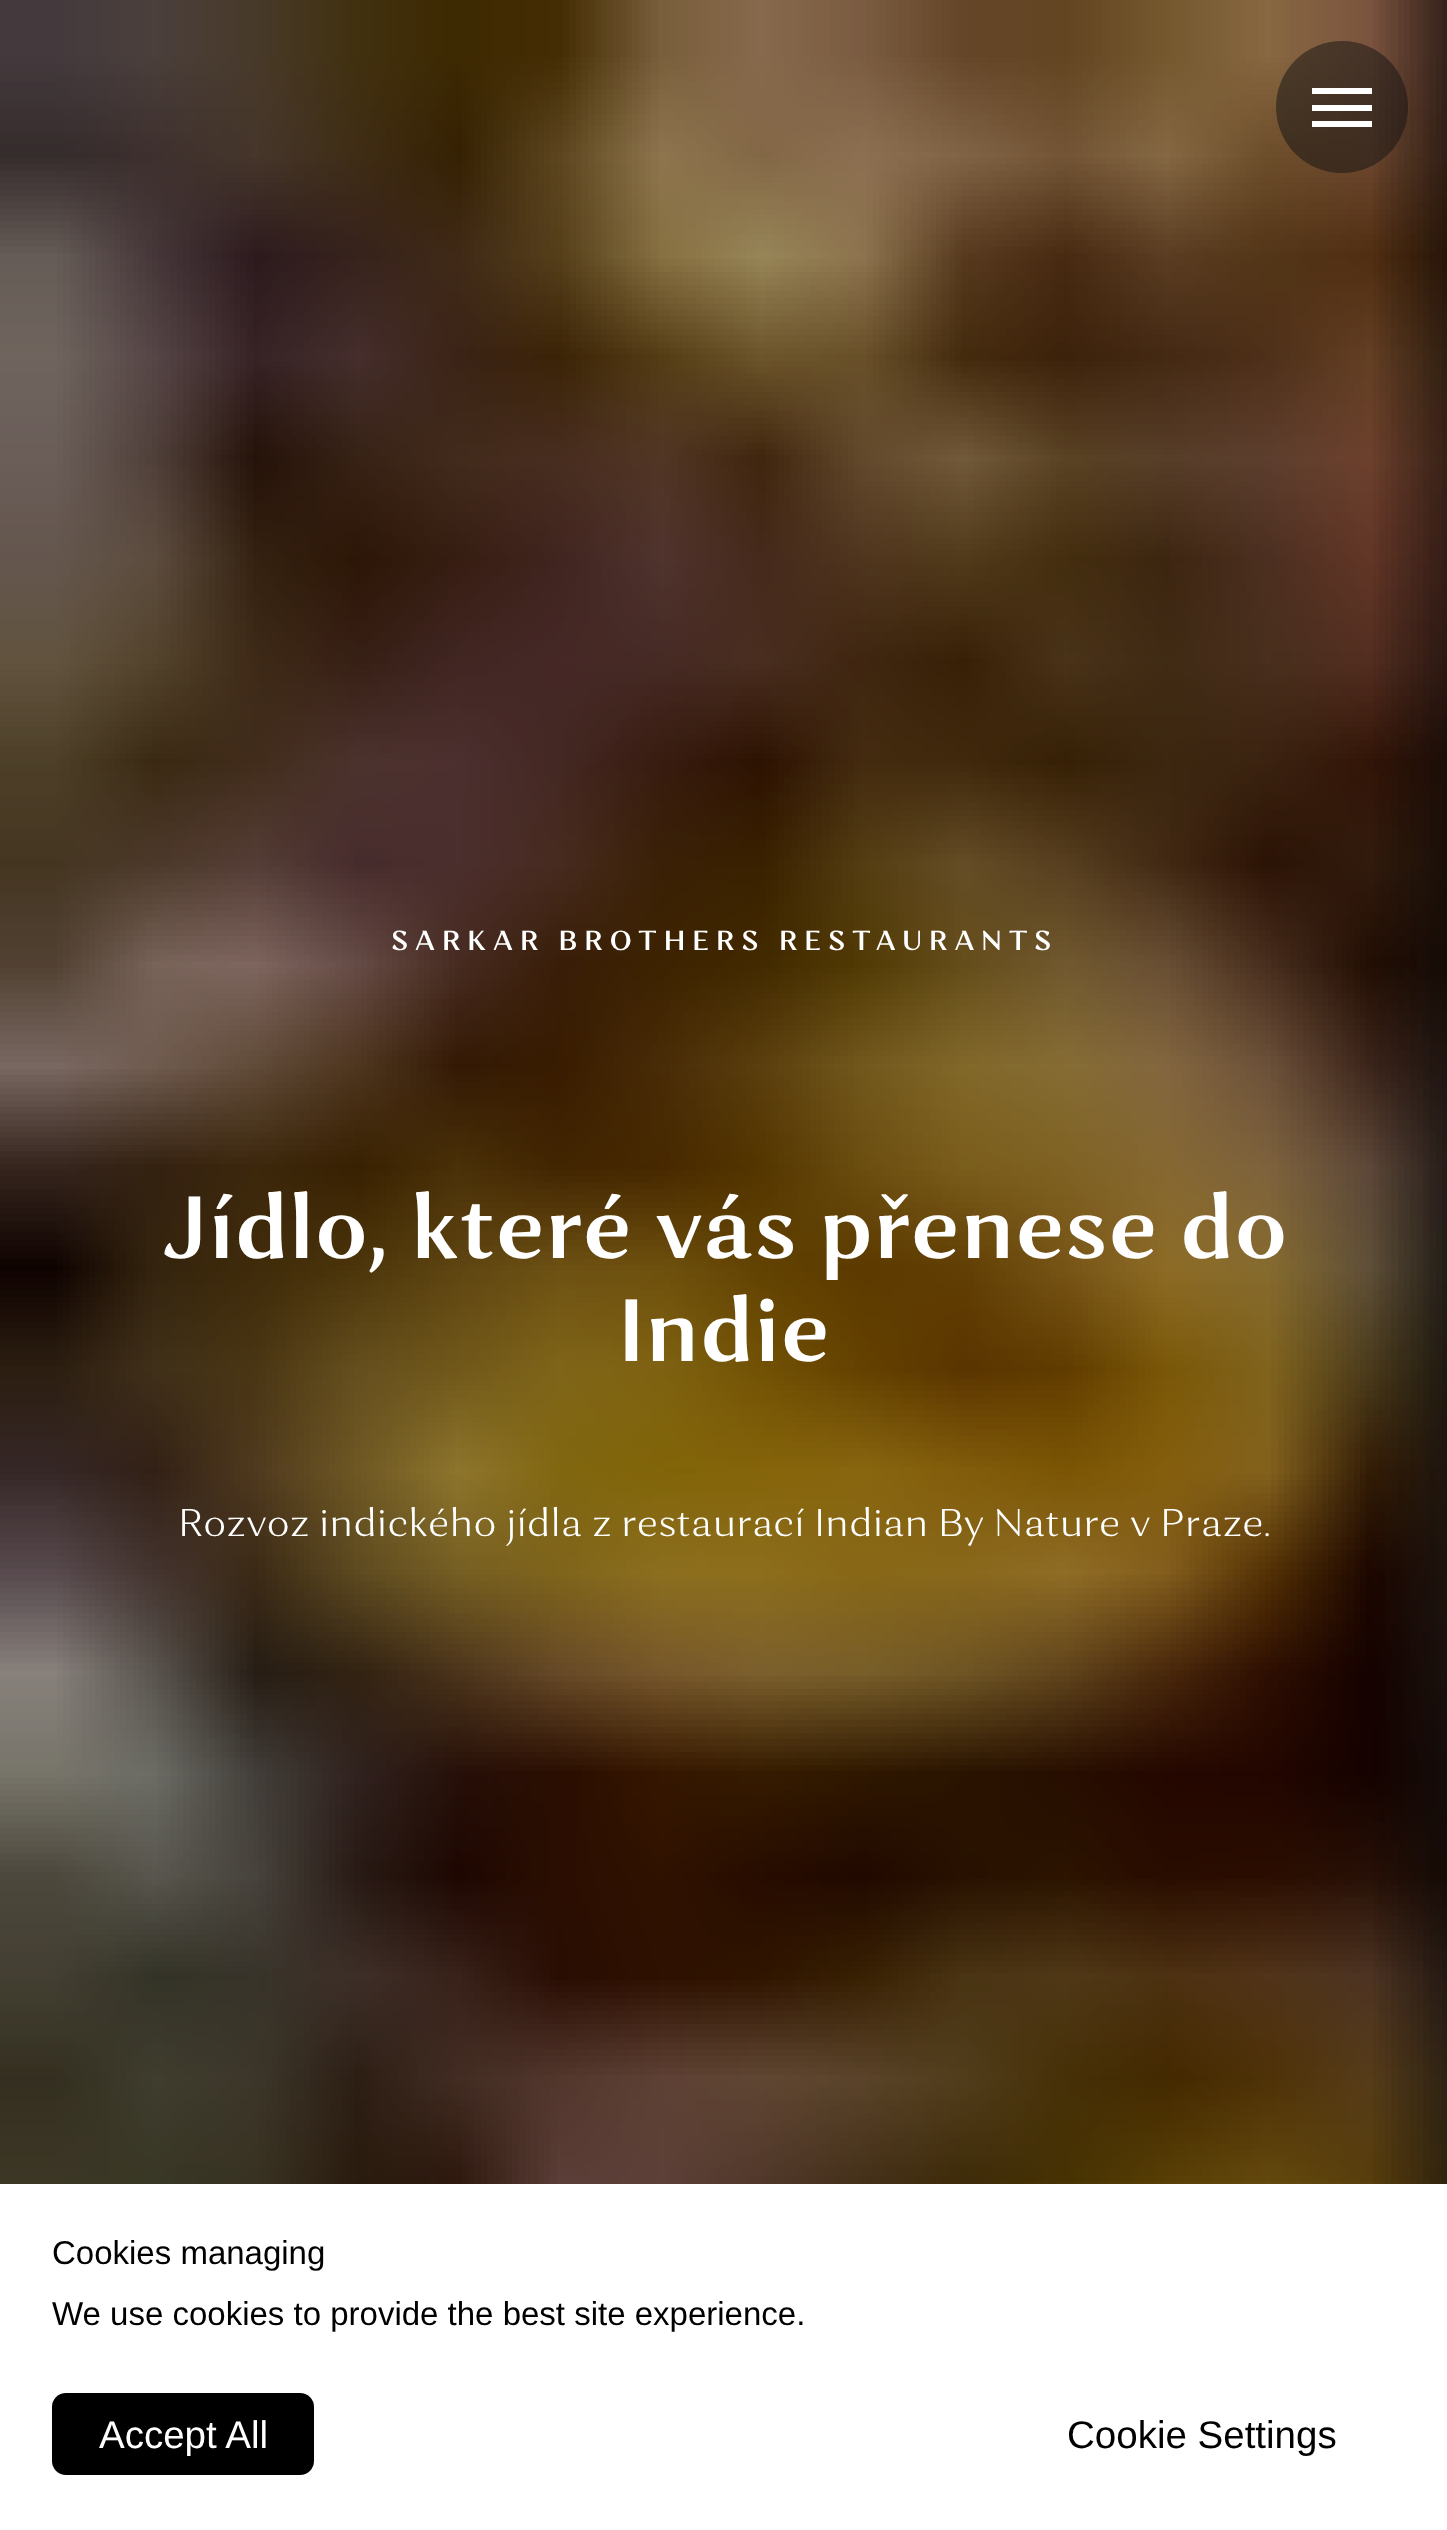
<svg xmlns="http://www.w3.org/2000/svg" width="1447" height="2530" viewBox="0 0 1447 2530">
  <rect width="100%" height="100%" fill="#090909"/>
  <image x="0" y="0" width="1447" height="2184" href="img/1.png"/>
  <circle cx="1342" cy="107" r="66" fill="#11111180"/>
  <path d="M1312 88h60v6H1312z" fill="#fff"/>
  <path d="M1312 105h60v6H1312z" fill="#fff"/>
  <path d="M1312 121h60v6H1312z" fill="#fff"/>
  <path d="M0 2184h1447v346H0z" fill="#fff"/>
  <rect x="52" y="2393" width="262" height="82" rx="14" fill="#000"/>
  <text x="391" y="950" font-family="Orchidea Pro" font-size="27.5" font-weight="600" letter-spacing="6.9" fill="#fff">SARKAR BROTHERS RESTAURANTS</text>
  <g font-family="Orchidea Pro" font-size="88" font-weight="600" letter-spacing="1.4" fill="#fff">
    <text x="162" y="1258">Jídlo, které vás přenese do</text>
    <text x="618" y="1361">Indie</text>
  </g>
  <text x="178" y="1536" font-family="Orchidea Pro" font-size="38.5" font-weight="300" fill="#fff">Rozvoz indického jídla z restaurací Indian By Nature v Praze.</text>
  <g font-family="Liberation Sans" font-size="33" fill="#000">
    <text x="52" y="2264">Cookies managing</text>
    <text x="52" y="2325">We use cookies to provide the best site experience.</text>
  </g>
  <text x="99" y="2448" font-family="Liberation Sans" font-size="38.5" fill="#fff">Accept All</text>
  <text x="1067" y="2448" font-family="Liberation Sans" font-size="38.5" fill="#000">Cookie Settings</text>
</svg>
